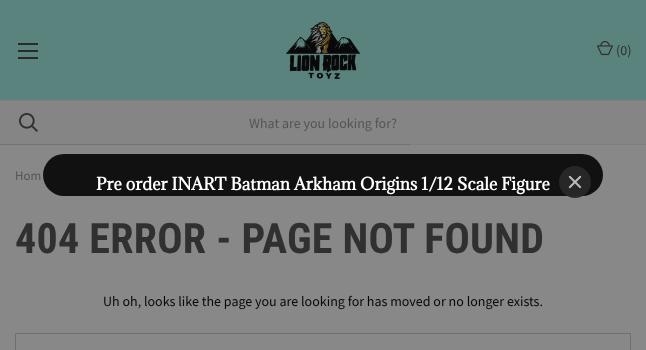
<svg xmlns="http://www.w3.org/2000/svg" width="646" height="350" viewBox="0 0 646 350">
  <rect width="100%" height="100%" fill="#888"/>
  <path d="M0 0h646v100H0z" fill="#5b837e"/>
  <path d="M410 144h236v1H410z" fill="#7e7e7e"/>
  <path d="M18 50h20v2H18z" fill="#2a2a2a"/>
  <path d="M18 43h20v2H18z" fill="#2a2a2a"/>
  <path d="M18 57h20v2H18z" fill="#2a2a2a"/>
  <image x="286" y="21" width="75" height="58" href="img/1.png"/>
  <image x="597" y="41" width="16" height="15" href="img/2.png"/>
  <path d="M0 101h646v43H0z" fill="#858585"/>
  <image x="19" y="113" width="19" height="19" href="img/3.png"/>
  <path d="M0 100h646v1H0z" fill="#7e7e7e"/>
  <path d="M0 144h410v1H0z" fill="#727272"/>
  <path d="M15.5 333.5h615v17H15.5z" fill="none" stroke="#6f6f6f"/>
  <rect x="43" y="154" width="560" height="42" rx="21" fill="#111"/>
  <circle cx="575" cy="182" r="16" fill="#292929f2"/>
  <image x="568" y="175" width="14" height="14" href="img/4.png"/>
  <text x="616" y="55" font-family="Source Sans Pro" font-size="14" fill="#303030">(0)</text>
  <text x="249" y="128" font-family="Source Sans Pro" font-size="14" fill="#555">What are you looking for?</text>
  <text x="15" y="180" font-family="Source Sans Pro" font-size="13" fill="#555">Hom</text>
  <text x="15" y="253" font-family="Roboto Condensed" font-size="42" font-weight="bold" letter-spacing="0.25" fill="#303030">404 ERROR - PAGE NOT FOUND</text>
  <text x="103" y="306" font-family="Source Sans Pro" font-size="14" fill="#090909">Uh oh, looks like the page you are looking for has moved or no longer exists.</text>
  <text x="96" y="190" font-family="Adamina" font-size="16" font-weight="bold" fill="#fff">Pre order INART Batman Arkham Origins 1/12 Scale Figure</text>
</svg>
